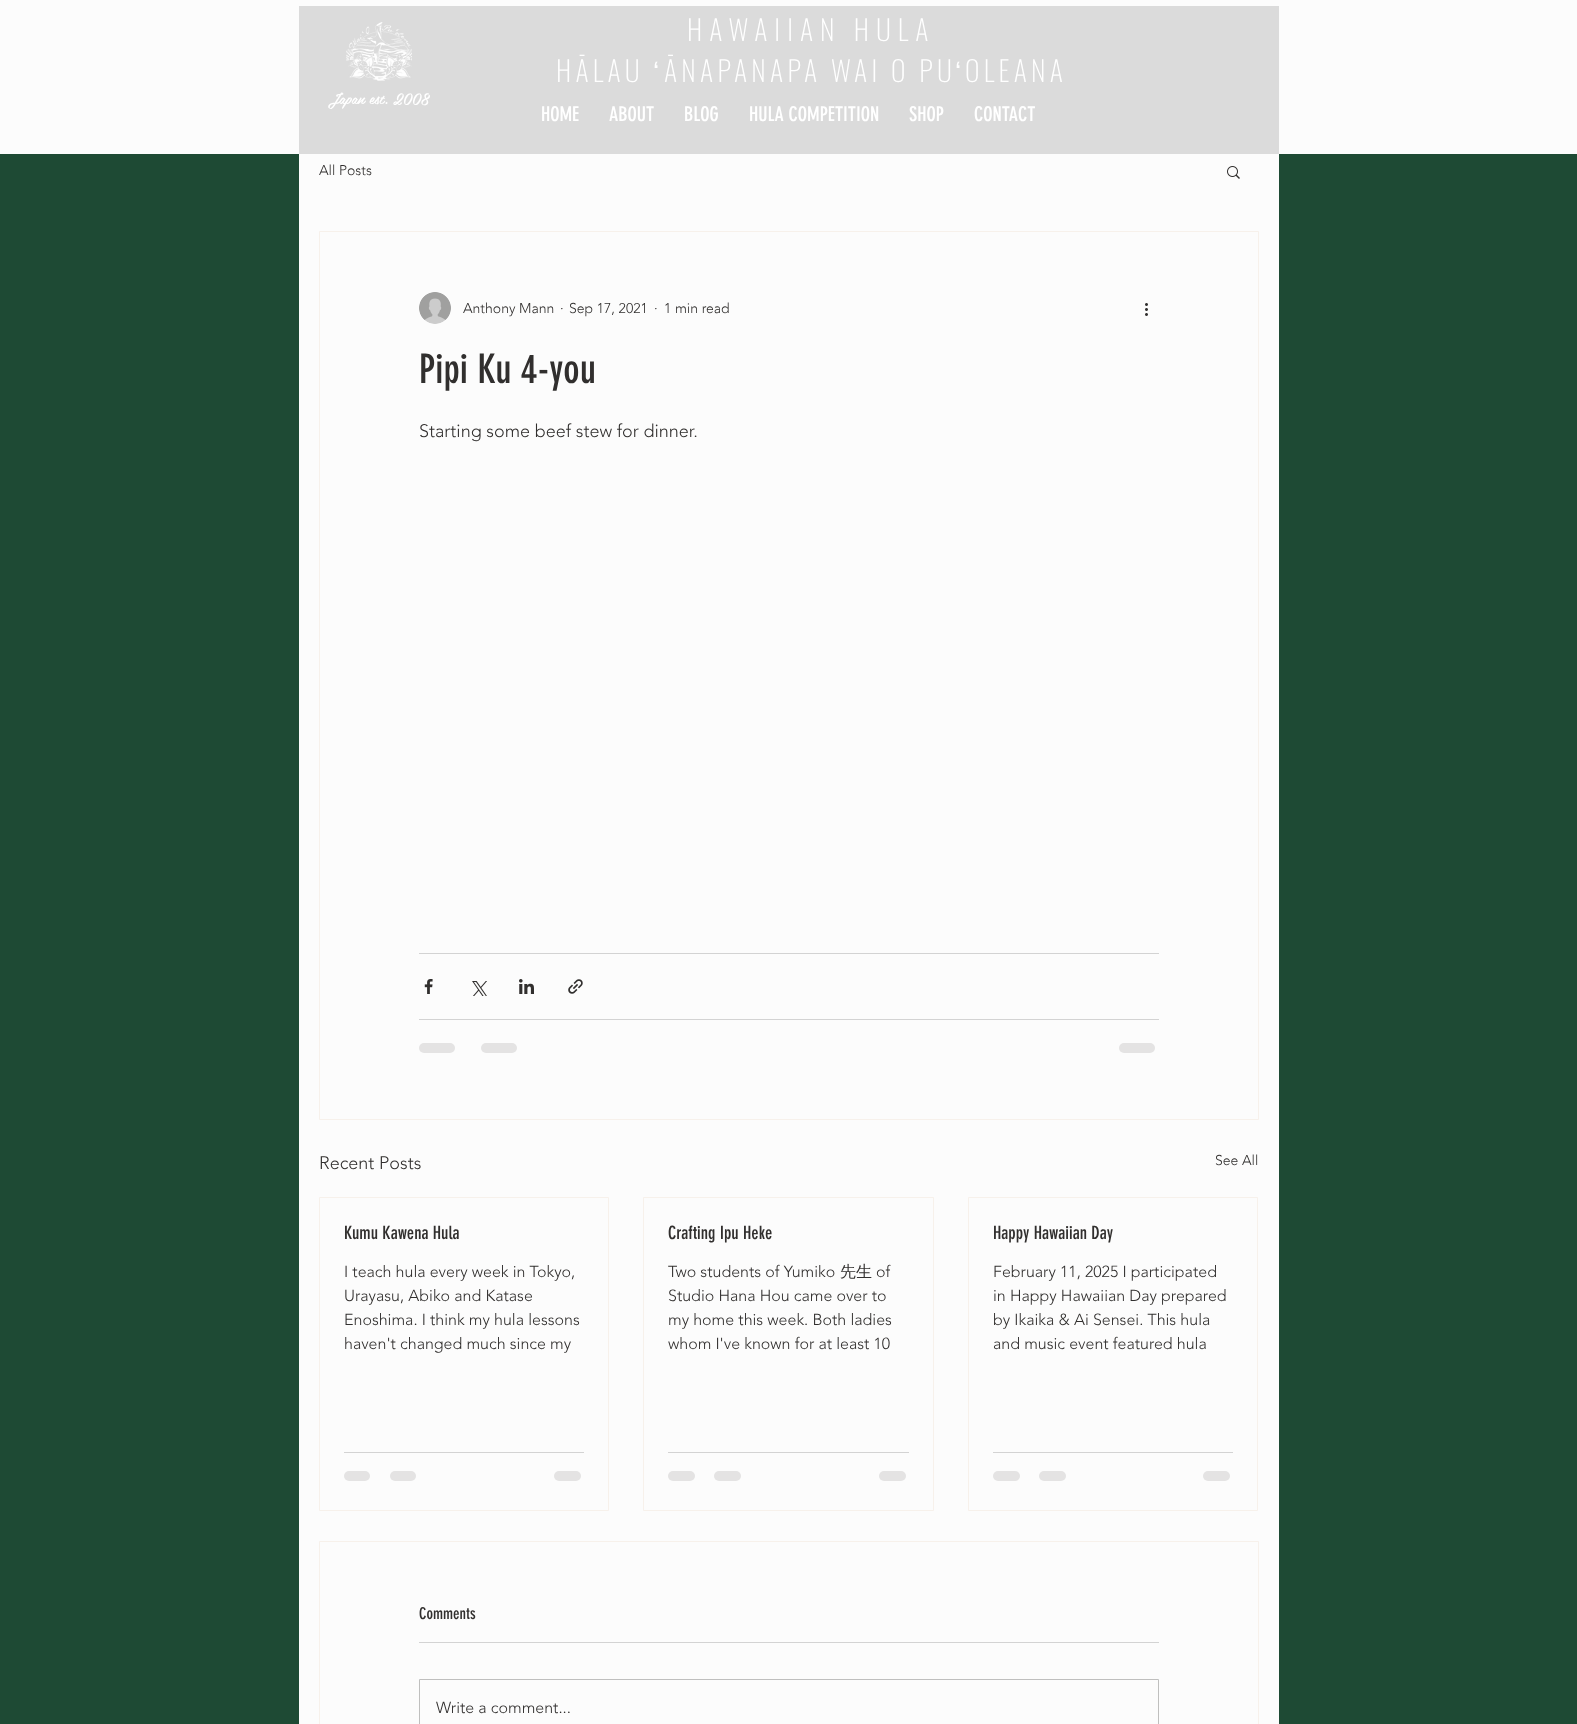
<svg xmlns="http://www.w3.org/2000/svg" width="1577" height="1724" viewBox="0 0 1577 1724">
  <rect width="100%" height="100%" fill="#1e4a34"/>
  <path d="M0 0h1577v154H0z" fill="#fcfcfc"/>
  <path d="M299 6h980v148H299z" fill="#dbdbdb"/>
  <image x="346" y="22" width="66" height="59" href="img/1.png"/>
  <path d="M299 154h980v1570H299z" fill="#fcfcfc"/>
  <image x="1227" y="166" width="13" height="13" href="img/2.png"/>
  <path d="M319.5 231.5h939v888H319.5z" fill="none" stroke="#f7f1eb"/>
  <image x="419" y="292" width="32" height="32" href="img/3.png"/>
  <image x="1145" y="303" width="3" height="13" href="img/4.png"/>
  <path d="M419 953h740v1H419z" fill="#d3d3d3"/>
  <image x="424" y="979" width="9" height="15" href="img/5.png"/>
  <image x="472" y="981" width="15" height="15" href="img/6.png"/>
  <image x="519" y="979" width="15" height="15" href="img/7.png"/>
  <image x="568" y="979" width="15" height="15" href="img/8.png"/>
  <path d="M419 1019h740v1H419z" fill="#d3d3d3"/>
  <rect x="419" y="1043" width="36" height="10" rx="5" fill="#e4e3e3"/>
  <rect x="481" y="1043" width="36" height="10" rx="5" fill="#e4e3e3"/>
  <rect x="1119" y="1043" width="36" height="10" rx="5" fill="#e4e3e3"/>
  <path d="M319.5 1197.5h289v313H319.5z" fill="none" stroke="#f7f1eb"/>
  <path d="M344 1452h240v1H344z" fill="#d3d3d3"/>
  <rect x="344" y="1471" width="26" height="10" rx="5" fill="#e4e3e3"/>
  <rect x="390" y="1471" width="26" height="10" rx="5" fill="#e4e3e3"/>
  <rect x="554" y="1471" width="27" height="10" rx="5" fill="#e4e3e3"/>
  <path d="M643.5 1197.5h290v313H643.5z" fill="none" stroke="#f7f1eb"/>
  <path d="M668 1452h241v1H668z" fill="#d3d3d3"/>
  <rect x="668" y="1471" width="27" height="10" rx="5" fill="#e4e3e3"/>
  <rect x="714" y="1471" width="27" height="10" rx="5" fill="#e4e3e3"/>
  <rect x="879" y="1471" width="27" height="10" rx="5" fill="#e4e3e3"/>
  <path d="M968.5 1197.5h289v313H968.5z" fill="none" stroke="#f7f1eb"/>
  <path d="M993 1452h240v1H993z" fill="#d3d3d3"/>
  <rect x="993" y="1471" width="27" height="10" rx="5" fill="#e4e3e3"/>
  <rect x="1039" y="1471" width="27" height="10" rx="5" fill="#e4e3e3"/>
  <rect x="1203" y="1471" width="27" height="10" rx="5" fill="#e4e3e3"/>
  <path d="M319.5 1541.5h939v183H319.5z" fill="none" stroke="#f7f1eb"/>
  <path d="M419 1642h740v1H419z" fill="#d3d3d3"/>
  <path d="M419.5 1679.5h739v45H419.5z" fill="none" stroke="#bfbfbe"/>
  <text x="687" y="41" font-family="Oswald" font-size="28" font-weight="200" letter-spacing="7" fill="#fff">HAWAIIAN HULA</text>
  <text x="556" y="82" font-family="Oswald" font-size="28" font-weight="200" letter-spacing="4.25" fill="#fff">HĀLAU</text>
  <text x="653" y="82" font-family="Liberation Sans" font-size="28" letter-spacing="4.25" fill="#fff">ʻ</text>
  <text x="664" y="82" font-family="Oswald" font-size="28" font-weight="200" letter-spacing="4.25" fill="#fff">ĀNAPANAPA WAI O PU</text>
  <text x="955" y="82" font-family="Liberation Sans" font-size="28" letter-spacing="4.25" fill="#fff">ʻ</text>
  <text x="965" y="82" font-family="Oswald" font-size="28" font-weight="200" letter-spacing="4.25" fill="#fff">OLEANA</text>
  <text x="328" y="104" font-family="'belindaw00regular'" font-size="15" fill="#fff">Japan est. 2008</text>
  <g font-family="'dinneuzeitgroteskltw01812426'" font-size="20" fill="#fff">
    <text x="541" y="121">HOME</text>
    <text x="609" y="121">ABOUT</text>
    <text x="684" y="121">BLOG</text>
    <text x="749" y="121">HULA COMPETITION</text>
    <text x="909" y="121">SHOP</text>
    <text x="974" y="121">CONTACT</text>
  </g>
  <g font-family="'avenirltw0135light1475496'" font-size="14" font-weight="300" fill="#312f2e">
    <text x="319" y="175">All Posts</text>
    <text x="463" y="313">Anthony Mann</text>
    <text x="560" y="313">·</text>
    <text x="569" y="313">Sep 17, 2021</text>
    <text x="654" y="313">·</text>
    <text x="664" y="313">1 min read</text>
  </g>
  <text x="419" y="383" font-family="'dinneuzeitgroteskltw01812426'" font-size="40" fill="#312f2e">Pipi Ku 4-you</text>
  <g font-family="'avenirltw0135light1475496'" font-size="18" font-weight="300" fill="#312f2e">
    <text x="419" y="437">Starting some beef stew for dinner.</text>
    <text x="319" y="1169">Recent Posts</text>
  </g>
  <text x="1215" y="1165" font-family="'avenirltw0135light1475496'" font-size="14" font-weight="300" fill="#312f2e">See All</text>
  <text x="344" y="1239" font-family="'dinneuzeitgroteskltw01812426'" font-size="18" fill="#312f2e">Kumu Kawena Hula</text>
  <g font-family="'avenirltw0135light1475496'" font-size="16" font-weight="300" fill="#312f2e">
    <text x="344" y="1277">I teach hula every week in Tokyo,</text>
    <text x="344" y="1301">Urayasu, Abiko and Katase</text>
    <text x="344" y="1325">Enoshima. I think my hula lessons</text>
    <text x="344" y="1349">haven't changed much since my</text>
  </g>
  <text x="668" y="1239" font-family="'dinneuzeitgroteskltw01812426'" font-size="18" fill="#312f2e">Crafting Ipu Heke</text>
  <text x="668" y="1277" font-family="'avenirltw0135light1475496'" font-size="16" font-weight="300" fill="#312f2e">Two students of Yumiko</text>
  <text x="840" y="1277" font-family="WenQuanYi Zen Hei" font-size="16" font-weight="500" fill="#312f2e">先生</text>
  <g font-family="'avenirltw0135light1475496'" font-size="16" font-weight="300" fill="#312f2e">
    <text x="876" y="1277">of</text>
    <text x="668" y="1301">Studio Hana Hou came over to</text>
    <text x="668" y="1325">my home this week. Both ladies</text>
    <text x="668" y="1349">whom I've known for at least 10</text>
  </g>
  <text x="993" y="1239" font-family="'dinneuzeitgroteskltw01812426'" font-size="18" fill="#312f2e">Happy Hawaiian Day</text>
  <g font-family="'avenirltw0135light1475496'" font-size="16" font-weight="300" fill="#312f2e">
    <text x="993" y="1277">February 11, 2025 I participated</text>
    <text x="993" y="1301">in Happy Hawaiian Day prepared</text>
    <text x="993" y="1325">by Ikaika &amp; Ai Sensei. This hula</text>
    <text x="993" y="1349">and music event featured hula</text>
  </g>
  <text x="419" y="1619" font-family="'dinneuzeitgroteskltw01812426'" font-size="16" fill="#312f2e">Comments</text>
  <text x="436" y="1713" font-family="'avenirltw0135light1475496'" font-size="16" font-weight="300" fill="#312f2e">Write a comment...</text>
</svg>
